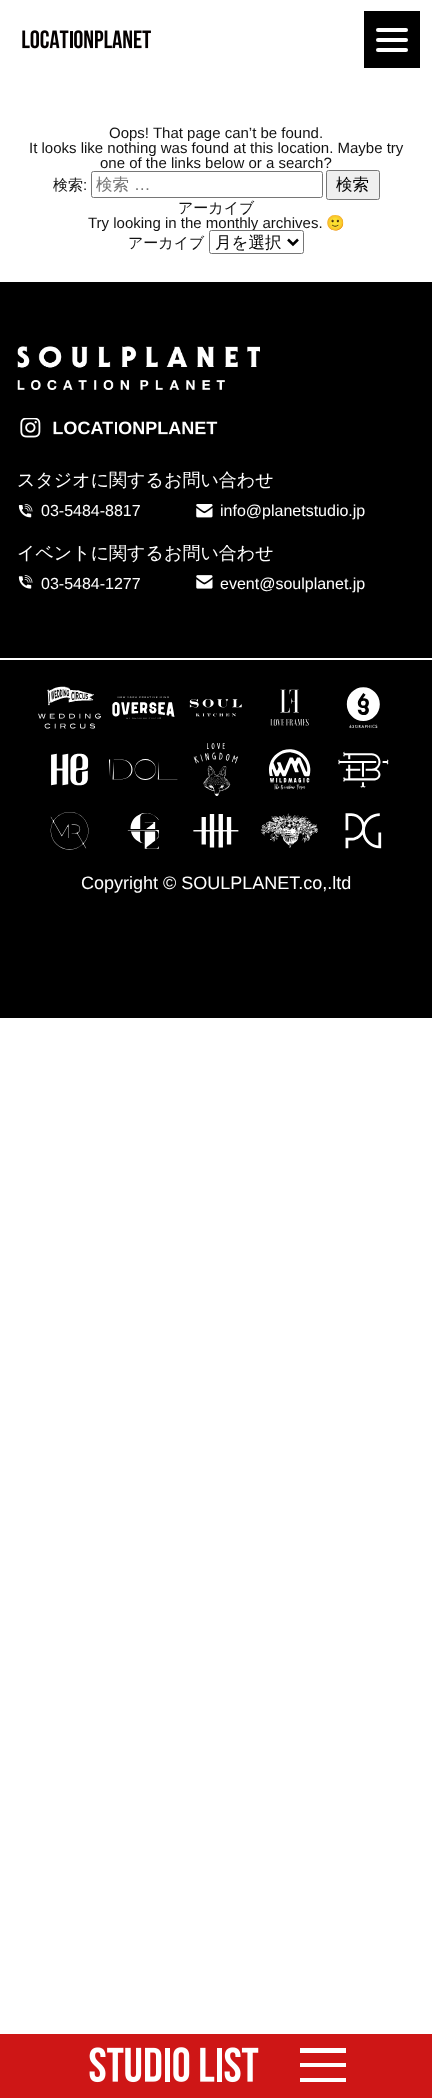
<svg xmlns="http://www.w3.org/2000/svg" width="432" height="2099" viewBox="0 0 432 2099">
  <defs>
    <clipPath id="clip1"><path d="M18 545h397v18H18z"/></clipPath>
  </defs>
  <rect width="100%" height="100%" fill="#fff"/>
  <image x="22" y="30" width="129" height="19" href="img/1.png"/>
  <path d="M364 11h56v57H364z" fill="#000"/>
  <rect x="376" y="38" width="32" height="4" rx="2" fill="#fff"/>
  <rect x="376" y="28" width="32" height="4" rx="2" fill="#fff"/>
  <rect x="376" y="48" width="32" height="4" rx="2" fill="#fff"/>
  <rect x="91.5" y="171.5" width="231" height="26" rx="2" fill="none" stroke="#767676"/>
  <rect x="326.5" y="170.5" width="53" height="29" rx="2" fill="#efefef" stroke="#767676"/>
  <path d="M0 282h432v736H0z" fill="#000"/>
  <path d="M0 658h432v2H0z" fill="#fff"/>
  <image x="17" y="346" width="243" height="44" href="img/2.png"/>
  <image x="20" y="418" width="198" height="20" href="img/3.png"/>
  <image x="18" y="504" width="15" height="14" href="img/4.png"/>
  <image x="196" y="504" width="17" height="14" href="img/5.png"/>
  <image x="18" y="575" width="15" height="14" href="img/6.png"/>
  <image x="196" y="575" width="17" height="14" href="img/7.png"/>
  <image x="38" y="686" width="63" height="43" href="img/8.png"/>
  <image x="112" y="696" width="63" height="23" href="img/9.png"/>
  <image x="189" y="699" width="53" height="18" href="img/10.png"/>
  <image x="270" y="689" width="39" height="37" href="img/11.png"/>
  <image x="346" y="687" width="34" height="41" href="img/12.png"/>
  <image x="51" y="753" width="38" height="33" href="img/13.png"/>
  <image x="109" y="759" width="69" height="21" href="img/14.png"/>
  <image x="193" y="743" width="45" height="53" href="img/15.png"/>
  <image x="268" y="749" width="43" height="41" href="img/16.png"/>
  <image x="338" y="751" width="51" height="37" href="img/17.png"/>
  <image x="50" y="812" width="39" height="38" href="img/18.png"/>
  <image x="127" y="813" width="32" height="36" href="img/19.png"/>
  <image x="193" y="814" width="46" height="34" href="img/20.png"/>
  <image x="260" y="813" width="58" height="35" href="img/21.png"/>
  <image x="345" y="813" width="37" height="36" href="img/22.png"/>
  <path d="M0 2034h432v64H0z" fill="#ce1616"/>
  <image x="89" y="2047" width="257" height="36" href="img/23.png"/>
  <g font-family="Liberation Sans" font-size="15" fill="#121212">
    <text x="109" y="138">Oops! That page can’t be found.</text>
    <text x="29" y="153">It looks like nothing was found at this location. Maybe try</text>
    <text x="100" y="168">one of the links below or a search?</text>
  </g>
  <text x="53" y="190" font-family="WenQuanYi Zen Hei" font-size="15" font-weight="500" fill="#121212">検索</text>
  <text x="83" y="190" font-family="Liberation Sans" font-size="15" fill="#121212">:</text>
  <text x="96" y="190" font-family="WenQuanYi Zen Hei" font-size="16.5" font-weight="500" fill="#757575">検索</text>
  <text x="134" y="190" font-family="Liberation Sans" font-size="16.5" fill="#757575">…</text>
  <text x="336" y="190" font-family="WenQuanYi Zen Hei" font-size="16.5" font-weight="500" fill="#000">検索</text>
  <text x="178" y="213" font-family="WenQuanYi Zen Hei" font-size="15" font-weight="500" fill="#121212">アーカイブ</text>
  <text x="88" y="228" font-family="Liberation Sans" font-size="15" fill="#121212">Try looking in the monthly archives.</text>
  <text x="326" y="228" font-family="Noto Color Emoji" font-size="15" fill="#121212">🙂</text>
  <text x="128" y="248" font-family="WenQuanYi Zen Hei" font-size="15" font-weight="500" fill="#121212">アーカイブ</text>
  <rect x="209.5" y="230.5" width="94" height="23" rx="2" fill="#fff" stroke="#767676"/>
  <path d="M288 239.5L293 244.5L298 239.5" fill="none" stroke="#000" stroke-width="2.5"/>
  <text x="215" y="248" font-family="WenQuanYi Zen Hei" font-size="16.5" font-weight="500" fill="#000">月を選択</text>
  <text x="17" y="486" font-family="WenQuanYi Zen Hei" font-size="18" font-weight="500" fill="#fff">スタジオに関するお問い合わせ</text>
  <g font-family="Liberation Sans" font-size="16" fill="#fff">
    <text x="41" y="516">03-5484-8817</text>
    <text x="220" y="516">info@planetstudio.jp</text>
  </g>
  <g clip-path="url(#clip1)">
    <text x="17" y="559" font-family="WenQuanYi Zen Hei" font-size="18" font-weight="500" fill="#fff">イベントに関するお問い合わせ</text>
  </g>
  <g font-family="Liberation Sans" font-size="16" fill="#fff">
    <text x="41" y="589">03-5484-1277</text>
    <text x="220" y="589">event@soulplanet.jp</text>
  </g>
  <text x="81" y="889" font-family="Liberation Sans" font-size="18" fill="#fff">Copyright © SOULPLANET.co,.ltd</text>
</svg>
